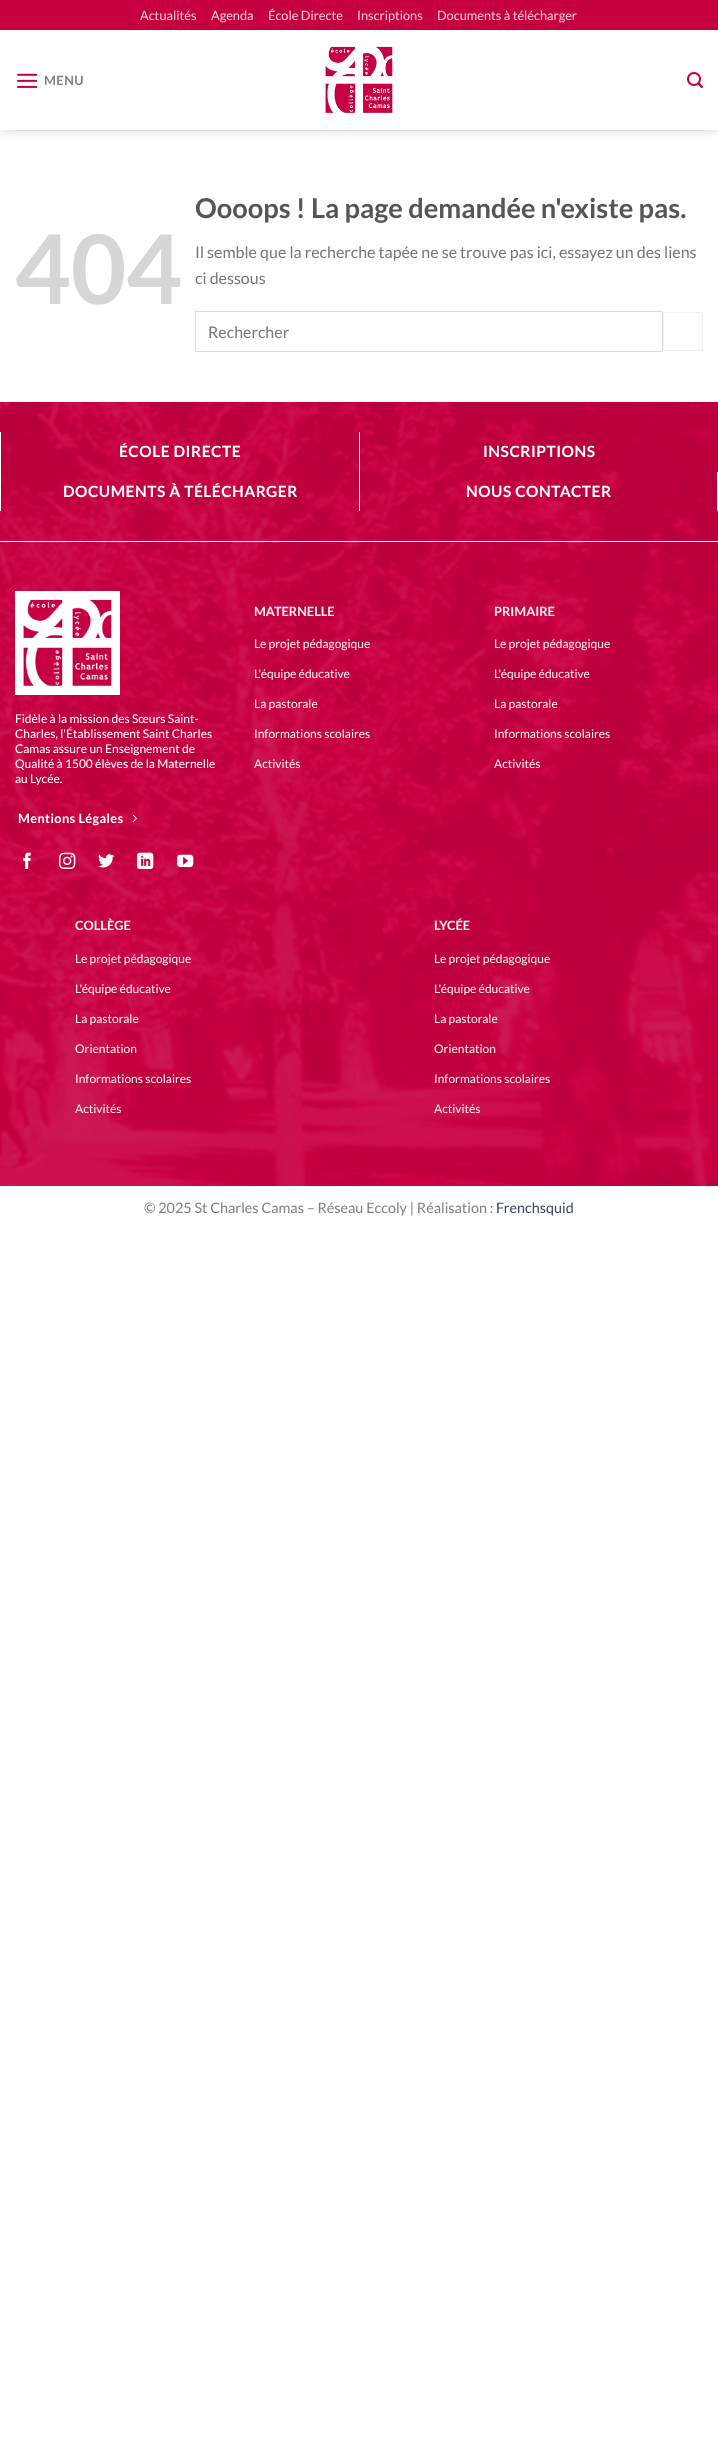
<svg xmlns="http://www.w3.org/2000/svg" width="718" height="2445" viewBox="0 0 718 2445">
  <defs>
    <clipPath id="clip1"><path d="M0 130h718v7H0z"/></clipPath>
  </defs>
  <rect width="100%" height="100%" fill="#fff"/>
  <g clip-path="url(#clip1)">
    <path d="M1 1h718v130H1z" fill="#00000026" filter="blur(5px)"/>
  </g>
  <path d="M0 0h718v30H0z" fill="#c60040"/>
  <image x="17" y="73" width="21" height="15" href="img/1.png"/>
  <image x="325" y="46" width="68" height="67" href="img/2.png"/>
  <image x="687" y="72" width="16" height="16" href="img/3.png"/>
  <path d="M15 130h688v1H15z" fill="#dfdfdf"/>
  <path d="M195.5 311.5h467v40H195.5z" fill="none" stroke="#ddd"/>
  <path d="M663.5 312.5h39v38H663.5z" fill="none" stroke="#f2f2f2"/>
  <image x="0" y="402" width="718" height="784" href="img/4.png"/>
  <path d="M0 432h1v79H0z" fill="#fff"/>
  <path d="M359 432h1v79H359z" fill="#fff"/>
  <path d="M717 472h1v39H717z" fill="#fff"/>
  <path d="M0 541h718v1H0z" fill="#fff"/>
  <image x="15" y="591" width="105" height="104" href="img/5.png"/>
  <image x="132" y="814" width="5" height="8" href="img/6.png"/>
  <image x="23" y="852" width="8" height="17" href="img/7.png"/>
  <image x="59" y="852" width="17" height="17" href="img/8.png"/>
  <image x="98" y="854" width="17" height="14" href="img/9.png"/>
  <image x="137" y="852" width="17" height="17" href="img/10.png"/>
  <image x="177" y="854" width="17" height="13" href="img/11.png"/>
  <g font-family="Lato" font-size="12.75" fill="#f4ccd9">
    <text x="140" y="20">Actualités</text>
    <text x="211" y="20">Agenda</text>
    <text x="268" y="20">École Directe</text>
    <text x="357" y="20">Inscriptions</text>
    <text x="437" y="20">Documents à télécharger</text>
  </g>
  <text x="44" y="85" font-family="Lato" font-size="12.75" font-weight="bold" letter-spacing="0.5" fill="#808080">MENU</text>
  <text x="15" y="304" font-family="Lato" font-size="96" font-weight="bold" fill="#d6d6d6">404</text>
  <text x="195" y="218" font-family="Lato" font-size="27.25" font-weight="bold" fill="#555">Oooops ! La page demandée n'existe pas.</text>
  <g font-family="Lato" font-size="16" fill="#777">
    <text x="195" y="258">Il semble que la recherche tapée ne se trouve pas ici, essayez un des liens</text>
    <text x="195" y="284">ci dessous</text>
    <text x="208" y="338">Rechercher</text>
  </g>
  <g font-family="Lato" font-size="15.5" font-weight="bold" letter-spacing="0.5" fill="#fff">
    <text x="119" y="457">ÉCOLE DIRECTE</text>
    <text x="483" y="457">INSCRIPTIONS</text>
    <text x="63" y="497">DOCUMENTS À TÉLÉCHARGER</text>
    <text x="466" y="497">NOUS CONTACTER</text>
  </g>
  <g font-family="Lato" font-size="12" fill="#fff">
    <text x="15" y="723">Fidèle à la mission des Sœurs Saint-</text>
    <text x="15" y="738">Charles, l'Établissement Saint Charles</text>
    <text x="15" y="753">Camas assure un Enseignement de</text>
    <text x="15" y="768">Qualité à 1500 élèves de la Maternelle</text>
    <text x="15" y="783">au Lycée.</text>
  </g>
  <text x="18" y="823" font-family="Lato" font-size="12.75" font-weight="bold" letter-spacing="0.4" fill="#fff">Mentions Légales</text>
  <text x="254" y="616" font-family="Lato" font-size="12.75" font-weight="bold" fill="#f1f1f1">MATERNELLE</text>
  <g font-family="Lato" font-size="12" fill="#f1f1f1">
    <text x="254" y="648">Le projet pédagogique</text>
    <text x="254" y="678">L'équipe éducative</text>
    <text x="254" y="708">La pastorale</text>
    <text x="254" y="738">Informations scolaires</text>
    <text x="254" y="768">Activités</text>
  </g>
  <text x="494" y="616" font-family="Lato" font-size="12.75" font-weight="bold" fill="#f1f1f1">PRIMAIRE</text>
  <g font-family="Lato" font-size="12" fill="#f1f1f1">
    <text x="494" y="648">Le projet pédagogique</text>
    <text x="494" y="678">L'équipe éducative</text>
    <text x="494" y="708">La pastorale</text>
    <text x="494" y="738">Informations scolaires</text>
    <text x="494" y="768">Activités</text>
  </g>
  <text x="75" y="930" font-family="Lato" font-size="12.75" font-weight="bold" fill="#f1f1f1">COLLÈGE</text>
  <g font-family="Lato" font-size="12" fill="#f1f1f1">
    <text x="75" y="963">Le projet pédagogique</text>
    <text x="75" y="993">L'équipe éducative</text>
    <text x="75" y="1023">La pastorale</text>
    <text x="75" y="1053">Orientation</text>
    <text x="75" y="1083">Informations scolaires</text>
    <text x="75" y="1113">Activités</text>
  </g>
  <text x="434" y="930" font-family="Lato" font-size="12.75" font-weight="bold" fill="#f1f1f1">LYCÉE</text>
  <g font-family="Lato" font-size="12" fill="#f1f1f1">
    <text x="434" y="963">Le projet pédagogique</text>
    <text x="434" y="993">L'équipe éducative</text>
    <text x="434" y="1023">La pastorale</text>
    <text x="434" y="1053">Orientation</text>
    <text x="434" y="1083">Informations scolaires</text>
    <text x="434" y="1113">Activités</text>
  </g>
  <text x="144" y="1213" font-family="Lato" font-size="14.4" fill="#808080">© 2025 St Charles Camas – Réseau Eccoly | Réalisation :</text>
  <text x="496" y="1213" font-family="Lato" font-size="14.4" fill="#334862">Frenchsquid</text>
</svg>
